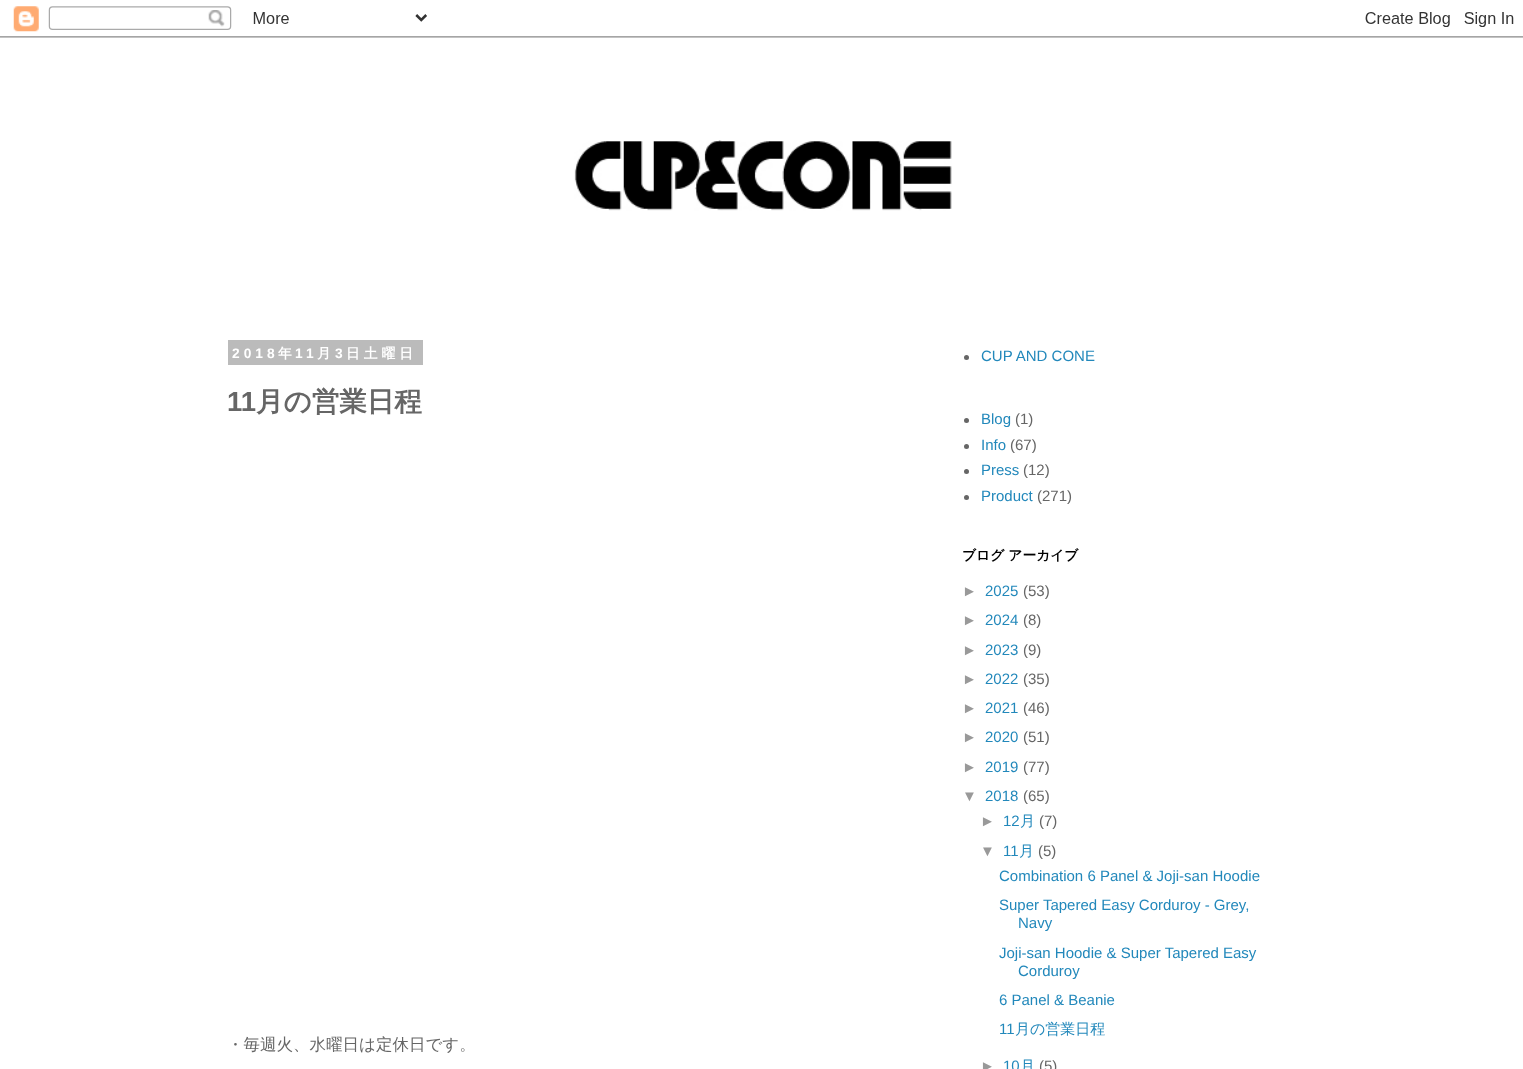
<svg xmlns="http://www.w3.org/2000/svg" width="1523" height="1069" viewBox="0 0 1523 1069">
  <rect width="100%" height="100%" fill="#fff"/>
  <image x="0" y="6" width="1523" height="32" href="img/1.png"/>
  <image x="574" y="140" width="378" height="71" href="img/2.png"/>
  <path d="M228 340h195v25H228z" fill="#bbb"/>
  <circle cx="966.5" cy="357.5" r="2.5" fill="#666"/>
  <circle cx="966.5" cy="420.5" r="2.5" fill="#666"/>
  <circle cx="966.5" cy="446.5" r="2.5" fill="#666"/>
  <circle cx="966.5" cy="471.5" r="2.5" fill="#666"/>
  <circle cx="966.5" cy="497.5" r="2.5" fill="#666"/>
  <text x="232" y="358" font-family="Liberation Sans" font-size="13.75" font-weight="bold" letter-spacing="4" fill="#fff">2018</text>
  <text x="278" y="358" font-family="WenQuanYi Zen Hei" font-size="13.75" font-weight="bold" letter-spacing="4" fill="#fff">年</text>
  <text x="295" y="358" font-family="Liberation Sans" font-size="13.75" font-weight="bold" letter-spacing="4" fill="#fff">11</text>
  <text x="317" y="358" font-family="WenQuanYi Zen Hei" font-size="13.75" font-weight="bold" letter-spacing="4" fill="#fff">月</text>
  <text x="335" y="358" font-family="Liberation Sans" font-size="13.75" font-weight="bold" letter-spacing="4" fill="#fff">3</text>
  <text x="346" y="358" font-family="WenQuanYi Zen Hei" font-size="13.75" font-weight="bold" letter-spacing="4" fill="#fff">日土曜日</text>
  <text x="227" y="411" font-family="Liberation Sans" font-size="27.5" font-weight="bold" fill="#666">11</text>
  <text x="256" y="411" font-family="WenQuanYi Zen Hei" font-size="27.5" font-weight="bold" fill="#666">月の営業日程</text>
  <text x="227" y="1050" font-family="WenQuanYi Zen Hei" font-size="16.5" font-weight="500" fill="#666">・毎週火、水曜日は定休日です。</text>
  <g font-family="Liberation Sans" font-size="15" fill="#28b">
    <text x="981" y="361">CUP AND CONE</text>
    <text x="981" y="424">Blog</text>
  </g>
  <text x="1015" y="424" font-family="Liberation Sans" font-size="15" fill="#666">(1)</text>
  <text x="981" y="450" font-family="Liberation Sans" font-size="15" fill="#28b">Info</text>
  <text x="1010" y="450" font-family="Liberation Sans" font-size="15" fill="#666">(67)</text>
  <text x="981" y="475" font-family="Liberation Sans" font-size="15" fill="#28b">Press</text>
  <text x="1023" y="475" font-family="Liberation Sans" font-size="15" fill="#666">(12)</text>
  <text x="981" y="501" font-family="Liberation Sans" font-size="15" fill="#28b">Product</text>
  <text x="1037" y="501" font-family="Liberation Sans" font-size="15" fill="#666">(271)</text>
  <text x="962" y="560" font-family="WenQuanYi Zen Hei" font-size="13.75" font-weight="bold" fill="#000">ブログ アーカイブ</text>
  <text x="962" y="596" font-family="Liberation Sans" font-size="15" fill="#999">►</text>
  <text x="985" y="596" font-family="Liberation Sans" font-size="15" fill="#28b">2025</text>
  <text x="1023" y="596" font-family="Liberation Sans" font-size="15" fill="#666">(53)</text>
  <text x="962" y="625" font-family="Liberation Sans" font-size="15" fill="#999">►</text>
  <text x="985" y="625" font-family="Liberation Sans" font-size="15" fill="#28b">2024</text>
  <text x="1023" y="625" font-family="Liberation Sans" font-size="15" fill="#666">(8)</text>
  <text x="962" y="655" font-family="Liberation Sans" font-size="15" fill="#999">►</text>
  <text x="985" y="655" font-family="Liberation Sans" font-size="15" fill="#28b">2023</text>
  <text x="1023" y="655" font-family="Liberation Sans" font-size="15" fill="#666">(9)</text>
  <text x="962" y="684" font-family="Liberation Sans" font-size="15" fill="#999">►</text>
  <text x="985" y="684" font-family="Liberation Sans" font-size="15" fill="#28b">2022</text>
  <text x="1023" y="684" font-family="Liberation Sans" font-size="15" fill="#666">(35)</text>
  <text x="962" y="713" font-family="Liberation Sans" font-size="15" fill="#999">►</text>
  <text x="985" y="713" font-family="Liberation Sans" font-size="15" fill="#28b">2021</text>
  <text x="1023" y="713" font-family="Liberation Sans" font-size="15" fill="#666">(46)</text>
  <text x="962" y="742" font-family="Liberation Sans" font-size="15" fill="#999">►</text>
  <text x="985" y="742" font-family="Liberation Sans" font-size="15" fill="#28b">2020</text>
  <text x="1023" y="742" font-family="Liberation Sans" font-size="15" fill="#666">(51)</text>
  <text x="962" y="772" font-family="Liberation Sans" font-size="15" fill="#999">►</text>
  <text x="985" y="772" font-family="Liberation Sans" font-size="15" fill="#28b">2019</text>
  <text x="1023" y="772" font-family="Liberation Sans" font-size="15" fill="#666">(77)</text>
  <text x="962" y="801" font-family="Liberation Sans" font-size="15" fill="#999">▼</text>
  <text x="985" y="801" font-family="Liberation Sans" font-size="15" fill="#28b">2018</text>
  <text x="1023" y="801" font-family="Liberation Sans" font-size="15" fill="#666">(65)</text>
  <text x="980" y="826" font-family="Liberation Sans" font-size="15" fill="#999">►</text>
  <text x="1003" y="826" font-family="Liberation Sans" font-size="15" fill="#28b">12</text>
  <text x="1020" y="826" font-family="WenQuanYi Zen Hei" font-size="15" font-weight="500" fill="#28b">月</text>
  <text x="1039" y="826" font-family="Liberation Sans" font-size="15" fill="#666">(7)</text>
  <text x="980" y="856" font-family="Liberation Sans" font-size="15" fill="#999">▼</text>
  <text x="1003" y="856" font-family="Liberation Sans" font-size="15" fill="#28b">11</text>
  <text x="1019" y="856" font-family="WenQuanYi Zen Hei" font-size="15" font-weight="500" fill="#28b">月</text>
  <text x="1038" y="856" font-family="Liberation Sans" font-size="15" fill="#666">(5)</text>
  <g font-family="Liberation Sans" font-size="15" fill="#28b">
    <text x="999" y="881">Combination 6 Panel &amp; Joji-san Hoodie</text>
    <text x="999" y="910">Super Tapered Easy Corduroy - Grey,</text>
    <text x="1018" y="928">Navy</text>
    <text x="999" y="958">Joji-san Hoodie &amp; Super Tapered Easy</text>
    <text x="1018" y="976">Corduroy</text>
    <text x="999" y="1005">6 Panel &amp; Beanie</text>
    <text x="999" y="1034">11</text>
  </g>
  <text x="1015" y="1034" font-family="WenQuanYi Zen Hei" font-size="15" font-weight="500" fill="#28b">月の営業日程</text>
  <text x="980" y="1071" font-family="Liberation Sans" font-size="15" fill="#999">►</text>
  <text x="1003" y="1071" font-family="Liberation Sans" font-size="15" fill="#28b">10</text>
  <text x="1020" y="1071" font-family="WenQuanYi Zen Hei" font-size="15" font-weight="500" fill="#28b">月</text>
  <text x="1039" y="1071" font-family="Liberation Sans" font-size="15" fill="#666">(5)</text>
</svg>
